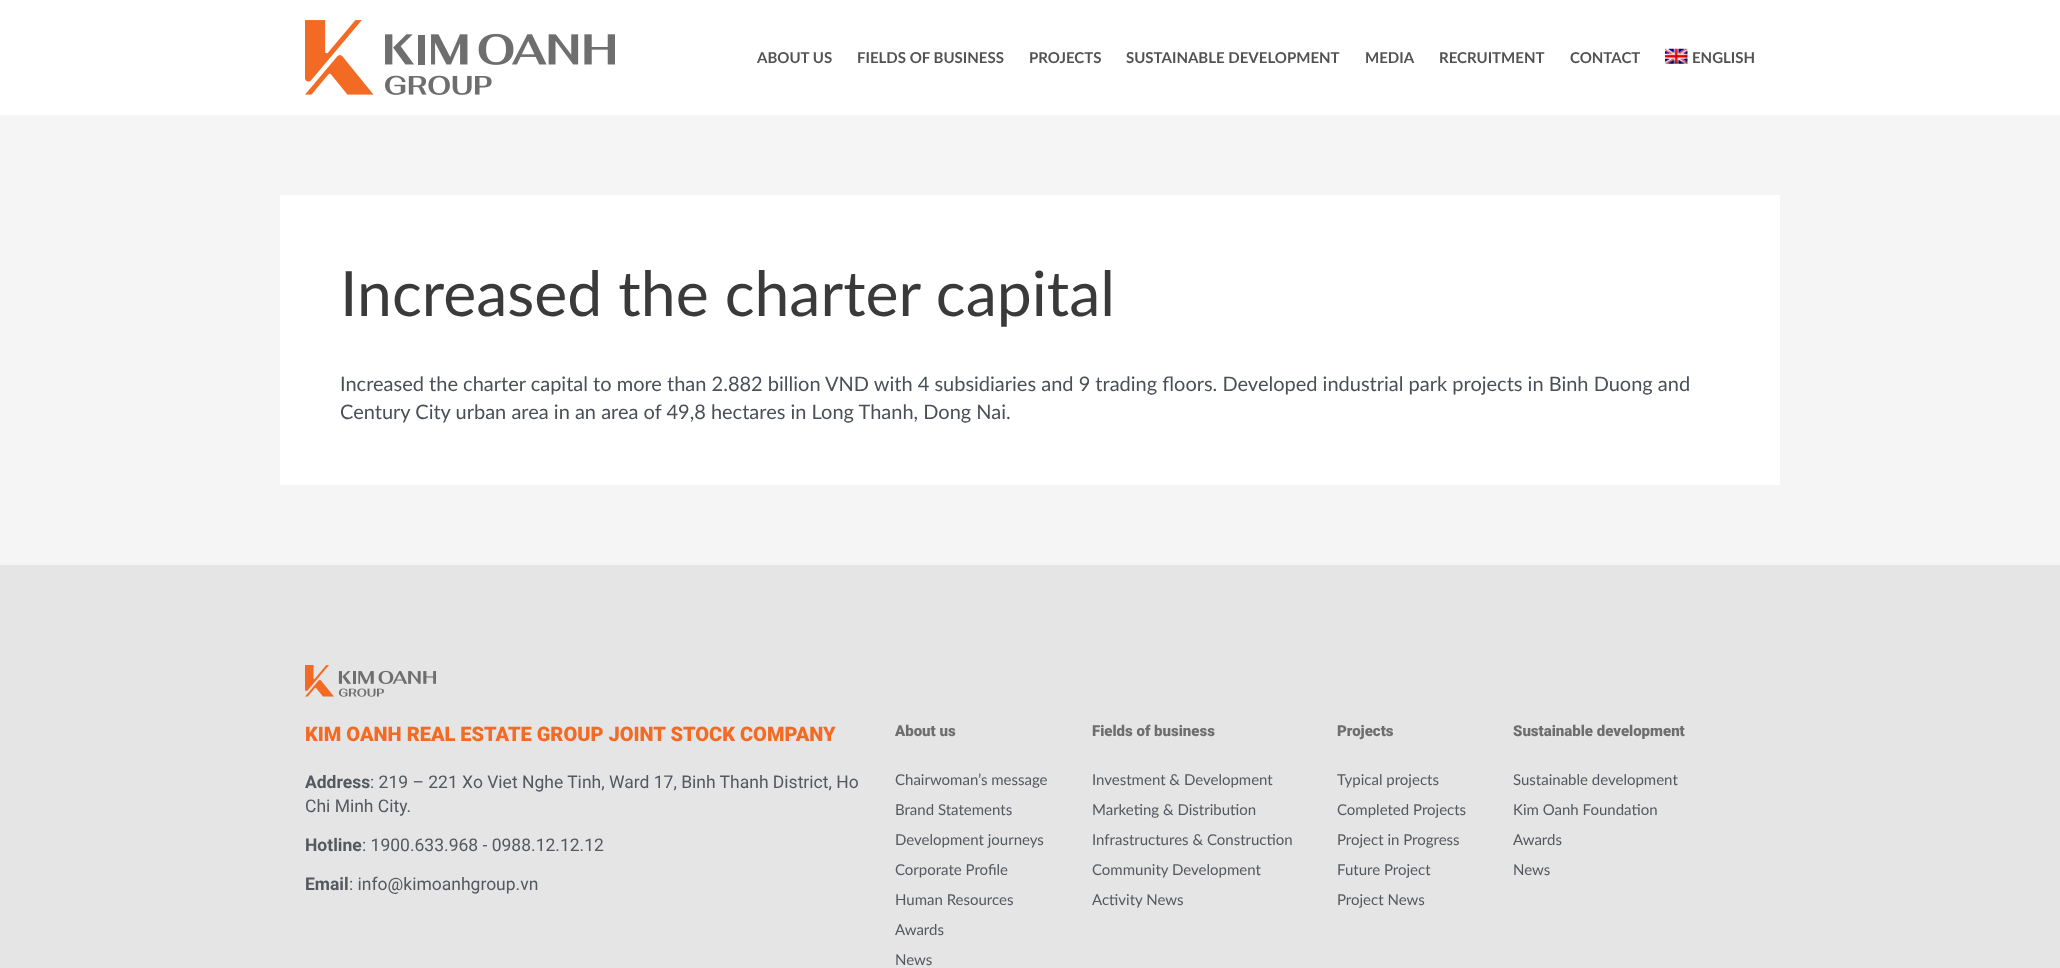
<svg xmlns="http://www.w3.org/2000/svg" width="2060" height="968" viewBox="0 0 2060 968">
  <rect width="100%" height="100%" fill="#f5f5f5"/>
  <path d="M0 0h2060v115H0z" fill="#fff"/>
  <image x="305" y="20" width="310" height="75" href="img/1.png"/>
  <image x="1665" y="48" width="23" height="16" href="img/2.png"/>
  <path d="M280 195h1500v290H280z" fill="#fff"/>
  <path d="M0 565h2060v403H0z" fill="#e5e5e5"/>
  <image x="305" y="665" width="131" height="32" href="img/3.png"/>
  <g font-family="Lato" font-size="15" font-weight="bold" fill="#525252">
    <text x="757" y="63">ABOUT US</text>
    <text x="857" y="63">FIELDS OF BUSINESS</text>
    <text x="1029" y="63">PROJECTS</text>
    <text x="1126" y="63">SUSTAINABLE DEVELOPMENT</text>
    <text x="1365" y="63">MEDIA</text>
    <text x="1439" y="63">RECRUITMENT</text>
    <text x="1570" y="63">CONTACT</text>
    <text x="1692" y="63">ENGLISH</text>
  </g>
  <text x="340" y="316" font-family="Lato" font-size="62.5" fill="#3a3a3a">Increased the charter capital</text>
  <g font-family="Lato" font-size="20" fill="#4b4f58">
    <text x="340" y="391">Increased the charter capital to more than 2.882 billion VND with 4 subsidiaries and 9 trading floors. Developed industrial park projects in Binh Duong and</text>
    <text x="340" y="419">Century City urban area in an area of 49,8 hectares in Long Thanh, Dong Nai.</text>
  </g>
  <text x="305" y="741" font-family="Roboto" font-size="20" font-weight="900" fill="#f26a23">KIM OANH REAL ESTATE GROUP JOINT STOCK COMPANY</text>
  <text x="305" y="788" font-family="Roboto" font-size="17.5" font-weight="bold" fill="#54595f">Address</text>
  <g font-family="Roboto" font-size="17.5" fill="#54595f">
    <text x="370" y="788">: 219 – 221 Xo Viet Nghe Tinh, Ward 17, Binh Thanh District, Ho</text>
    <text x="305" y="812">Chi Minh City.</text>
  </g>
  <text x="305" y="851" font-family="Roboto" font-size="17.5" font-weight="bold" fill="#54595f">Hotline</text>
  <text x="362" y="851" font-family="Roboto" font-size="17.5" fill="#54595f">: 1900.633.968 - 0988.12.12.12</text>
  <text x="305" y="890" font-family="Roboto" font-size="17.5" font-weight="bold" fill="#54595f">Email</text>
  <text x="349" y="890" font-family="Roboto" font-size="17.5" fill="#54595f">: info@kimoanhgroup.vn</text>
  <text x="895" y="736" font-family="Roboto" font-size="15" font-weight="900" fill="#6e6e6e">About us</text>
  <g font-family="Lato" font-size="15" fill="#54595f">
    <text x="895" y="785">Chairwoman’s message</text>
    <text x="895" y="815">Brand Statements</text>
    <text x="895" y="845">Development journeys</text>
    <text x="895" y="875">Corporate Profile</text>
    <text x="895" y="905">Human Resources</text>
    <text x="895" y="935">Awards</text>
    <text x="895" y="965">News</text>
  </g>
  <text x="1092" y="736" font-family="Roboto" font-size="15" font-weight="900" fill="#6e6e6e">Fields of business</text>
  <g font-family="Lato" font-size="15" fill="#54595f">
    <text x="1092" y="785">Investment &amp; Development</text>
    <text x="1092" y="815">Marketing &amp; Distribution</text>
    <text x="1092" y="845">Infrastructures &amp; Construction</text>
    <text x="1092" y="875">Community Development</text>
    <text x="1092" y="905">Activity News</text>
  </g>
  <text x="1337" y="736" font-family="Roboto" font-size="15" font-weight="900" fill="#6e6e6e">Projects</text>
  <g font-family="Lato" font-size="15" fill="#54595f">
    <text x="1337" y="785">Typical projects</text>
    <text x="1337" y="815">Completed Projects</text>
    <text x="1337" y="845">Project in Progress</text>
    <text x="1337" y="875">Future Project</text>
    <text x="1337" y="905">Project News</text>
  </g>
  <text x="1513" y="736" font-family="Roboto" font-size="15" font-weight="900" fill="#6e6e6e">Sustainable development</text>
  <g font-family="Lato" font-size="15" fill="#54595f">
    <text x="1513" y="785">Sustainable development</text>
    <text x="1513" y="815">Kim Oanh Foundation</text>
    <text x="1513" y="845">Awards</text>
    <text x="1513" y="875">News</text>
  </g>
</svg>
